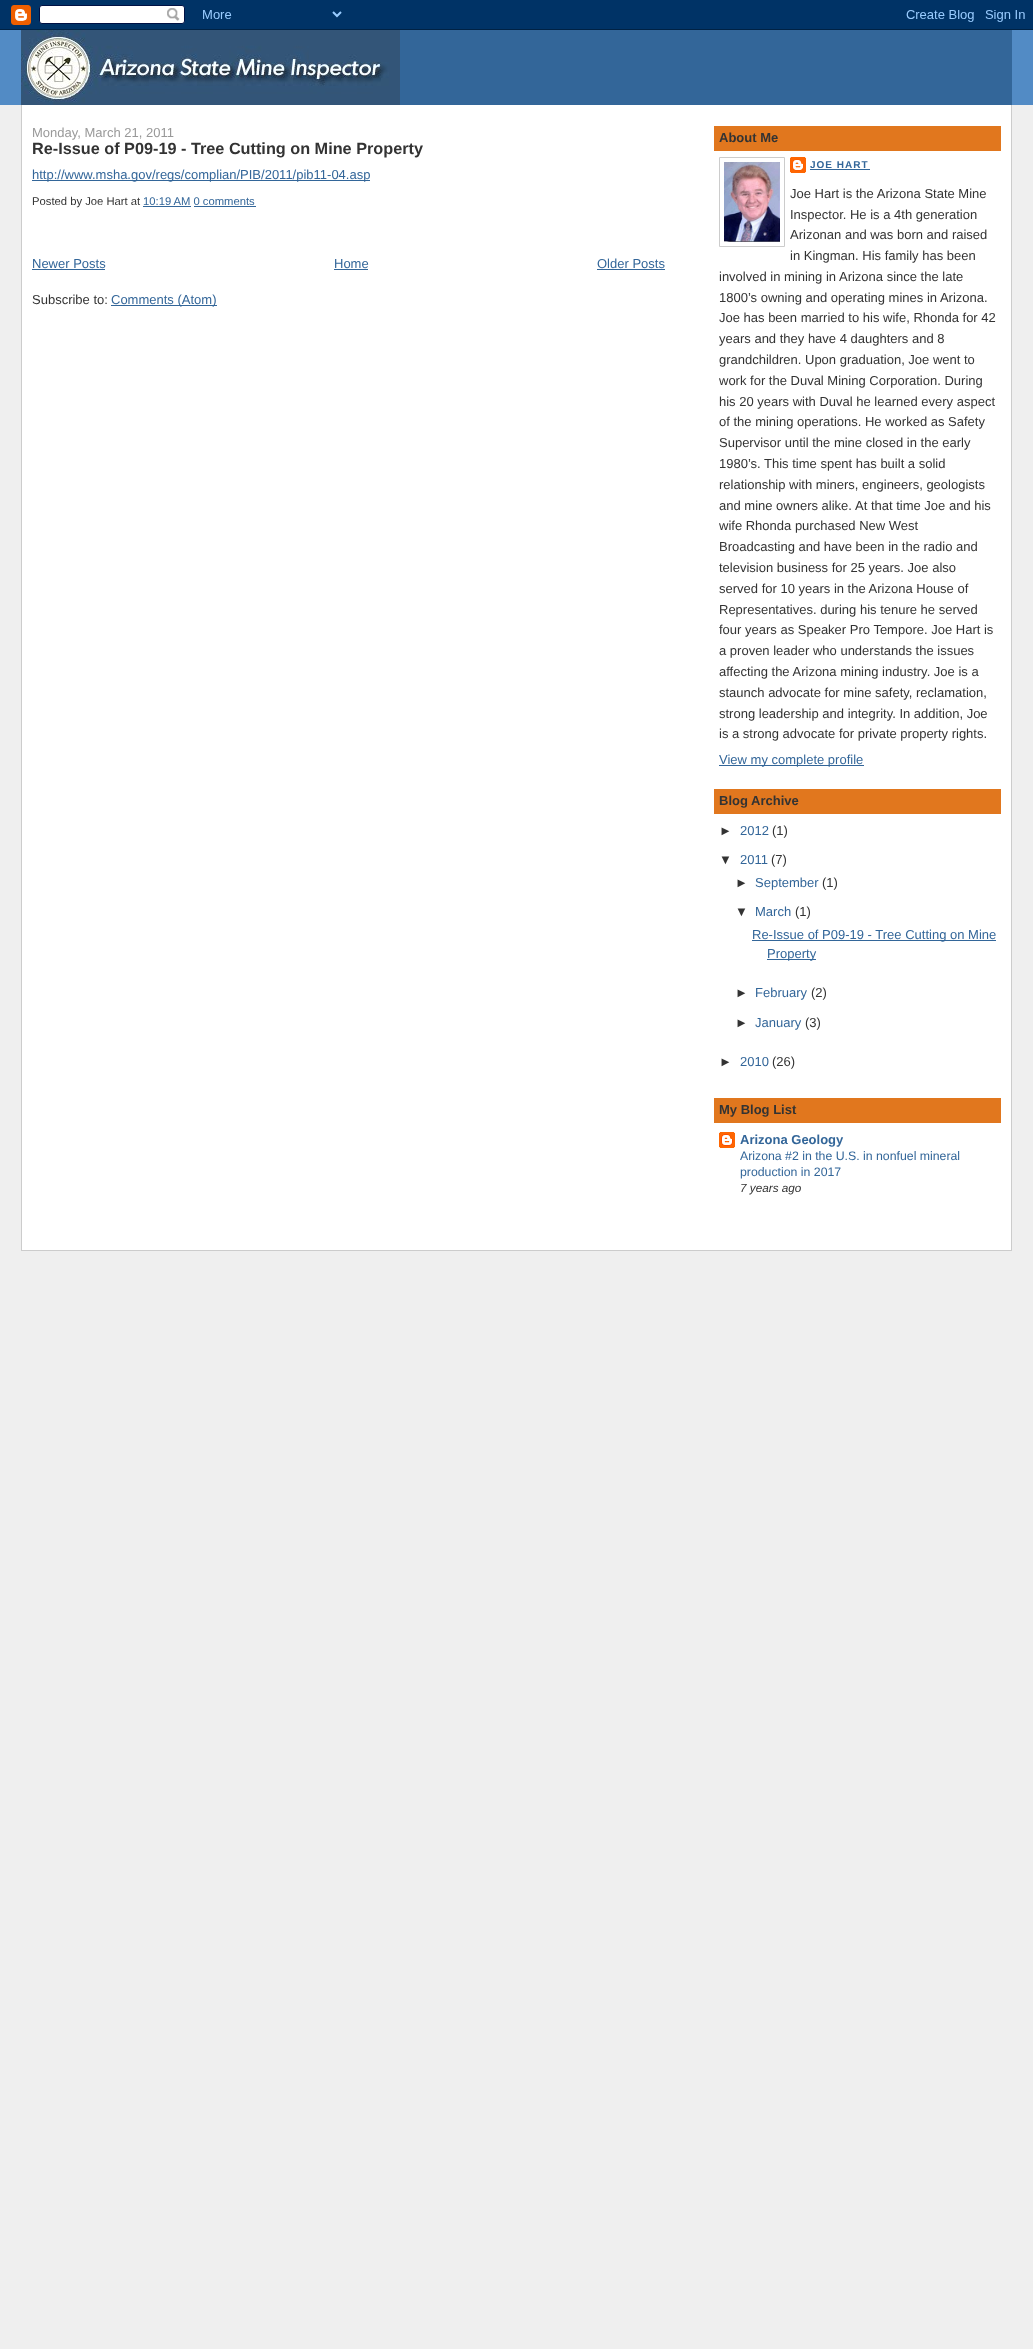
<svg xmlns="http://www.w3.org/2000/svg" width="1033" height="2349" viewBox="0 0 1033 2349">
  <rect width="100%" height="100%" fill="#efefef"/>
  <image x="0" y="0" width="1033" height="30" href="img/1.png"/>
  <path d="M0 30h1033v75H0z" fill="#528bc5"/>
  <path d="M400 30h612v75H400z" fill="#369"/>
  <image x="21" y="30" width="379" height="75" href="img/2.png"/>
  <path d="M22 105h989v1145H22z" fill="#fff"/>
  <path d="M1011 105h1v1146H1011z" fill="#ccc"/>
  <path d="M21 1250h991v1H21z" fill="#ccc"/>
  <path d="M21 105h1v1146H21z" fill="#ccc"/>
  <path d="M32 180h338v1H32z" fill="#369"/>
  <path d="M143 206h48v1H143z" fill="#369"/>
  <path d="M194 206h62v1H194z" fill="#369"/>
  <path d="M32 269h73v1H32z" fill="#369"/>
  <path d="M334 269h34v1H334z" fill="#369"/>
  <path d="M597 269h68v1H597z" fill="#369"/>
  <path d="M111 305h106v1H111z" fill="#369"/>
  <path d="M714 126h287v25H714z" fill="#e1771e"/>
  <path d="M719.5 157.5h65v89H719.5z" fill="none" stroke="#ccc"/>
  <image x="724" y="162" width="56" height="80" href="img/3.png"/>
  <image x="790" y="157" width="16" height="16" href="img/4.png"/>
  <path d="M810 169h60v1H810z" fill="#369"/>
  <path d="M719 765h145v1H719z" fill="#369"/>
  <path d="M714 789h287v25H714z" fill="#e1771e"/>
  <path d="M752 940h244v1H752z" fill="#369"/>
  <path d="M767 959h49v1H767z" fill="#369"/>
  <path d="M714 1098h287v25H714z" fill="#e1771e"/>
  <image x="719" y="1132" width="16" height="16" href="img/5.png"/>
  <text x="32" y="137" font-family="Liberation Sans" font-size="13" fill="#999">Monday, March 21, 2011</text>
  <text x="32" y="154" font-family="Liberation Sans" font-size="16.25" font-weight="bold" fill="#333">Re-Issue of P09-19 - Tree Cutting on Mine Property</text>
  <text x="32" y="179" font-family="Liberation Sans" font-size="13" fill="#369">http://www.msha.gov/regs/complian/PIB/2011/pib11-04.asp</text>
  <text x="32" y="205" font-family="Liberation Sans" font-size="11.25" fill="#333">Posted by Joe Hart at</text>
  <text x="143" y="205" font-family="Liberation Sans" font-size="11.25" fill="#369">10:19 AM 0 comments</text>
  <g font-family="Liberation Sans" font-size="13" fill="#369">
    <text x="32" y="268">Newer Posts</text>
    <text x="334" y="268">Home</text>
    <text x="597" y="268">Older Posts</text>
  </g>
  <text x="32" y="304" font-family="Liberation Sans" font-size="13" fill="#333">Subscribe to:</text>
  <text x="111" y="304" font-family="Liberation Sans" font-size="13" fill="#369">Comments (Atom)</text>
  <text x="719" y="142" font-family="Liberation Sans" font-size="13" font-weight="bold" fill="#333">About Me</text>
  <text x="810" y="168" font-family="Liberation Sans" font-size="10" font-weight="bold" letter-spacing="1" fill="#369">JOE HART</text>
  <g font-family="Liberation Sans" font-size="13" fill="#333">
    <text x="790" y="198">Joe Hart is the Arizona State Mine</text>
    <text x="790" y="219">Inspector. He is a 4th generation</text>
    <text x="790" y="239">Arizonan and was born and raised</text>
    <text x="790" y="260">in Kingman. His family has been</text>
    <text x="719" y="281">involved in mining in Arizona since the late</text>
    <text x="719" y="302">1800’s owning and operating mines in Arizona.</text>
    <text x="719" y="322">Joe has been married to his wife, Rhonda for 42</text>
    <text x="719" y="343">years and they have 4 daughters and 8</text>
    <text x="719" y="364">grandchildren. Upon graduation, Joe went to</text>
    <text x="719" y="385">work for the Duval Mining Corporation. During</text>
    <text x="719" y="406">his 20 years with Duval he learned every aspect</text>
    <text x="719" y="426">of the mining operations. He worked as Safety</text>
    <text x="719" y="447">Supervisor until the mine closed in the early</text>
    <text x="719" y="468">1980’s. This time spent has built a solid</text>
    <text x="719" y="489">relationship with miners, engineers, geologists</text>
    <text x="719" y="510">and mine owners alike.</text>
    <text x="855" y="510">At that time Joe and his</text>
    <text x="719" y="530">wife Rhonda purchased New West</text>
    <text x="719" y="551">Broadcasting and have been in the radio and</text>
    <text x="719" y="572">television business for 25 years. Joe also</text>
    <text x="719" y="593">served for 10 years in the Arizona House of</text>
    <text x="719" y="614">Representatives. during his tenure he served</text>
    <text x="719" y="634">four years as Speaker Pro Tempore. Joe Hart is</text>
    <text x="719" y="655">a proven leader who understands the issues</text>
    <text x="719" y="676">affecting the Arizona mining industry. Joe is a</text>
    <text x="719" y="697">staunch advocate for mine safety, reclamation,</text>
    <text x="719" y="718">strong leadership and integrity. In addition, Joe</text>
    <text x="719" y="738">is a strong advocate for private property rights.</text>
  </g>
  <text x="719" y="764" font-family="Liberation Sans" font-size="13" fill="#369">View my complete profile</text>
  <text x="719" y="805" font-family="Liberation Sans" font-size="13" font-weight="bold" fill="#333">Blog Archive</text>
  <text x="719" y="835" font-family="Liberation Sans" font-size="13" fill="#333">►</text>
  <text x="740" y="835" font-family="Liberation Sans" font-size="13" fill="#369">2012</text>
  <g font-family="Liberation Sans" font-size="13" fill="#333">
    <text x="772" y="835">(1)</text>
    <text x="719" y="864">▼</text>
  </g>
  <text x="740" y="864" font-family="Liberation Sans" font-size="13" fill="#369">2011</text>
  <g font-family="Liberation Sans" font-size="13" fill="#333">
    <text x="771" y="864">(7)</text>
    <text x="735" y="887">►</text>
  </g>
  <text x="755" y="887" font-family="Liberation Sans" font-size="13" fill="#369">September</text>
  <g font-family="Liberation Sans" font-size="13" fill="#333">
    <text x="822" y="887">(1)</text>
    <text x="735" y="916">▼</text>
  </g>
  <text x="755" y="916" font-family="Liberation Sans" font-size="13" fill="#369">March</text>
  <text x="795" y="916" font-family="Liberation Sans" font-size="13" fill="#333">(1)</text>
  <g font-family="Liberation Sans" font-size="13" fill="#369">
    <text x="752" y="939">Re-Issue of P09-19 - Tree Cutting on Mine</text>
    <text x="767" y="958">Property</text>
  </g>
  <text x="735" y="997" font-family="Liberation Sans" font-size="13" fill="#333">►</text>
  <text x="755" y="997" font-family="Liberation Sans" font-size="13" fill="#369">February</text>
  <g font-family="Liberation Sans" font-size="13" fill="#333">
    <text x="811" y="997">(2)</text>
    <text x="735" y="1027">►</text>
  </g>
  <text x="755" y="1027" font-family="Liberation Sans" font-size="13" fill="#369">January</text>
  <g font-family="Liberation Sans" font-size="13" fill="#333">
    <text x="805" y="1027">(3)</text>
    <text x="719" y="1066">►</text>
  </g>
  <text x="740" y="1066" font-family="Liberation Sans" font-size="13" fill="#369">2010</text>
  <text x="772" y="1066" font-family="Liberation Sans" font-size="13" fill="#333">(26)</text>
  <text x="719" y="1114" font-family="Liberation Sans" font-size="13" font-weight="bold" fill="#333">My Blog List</text>
  <text x="740" y="1144" font-family="Liberation Sans" font-size="13" font-weight="bold" fill="#369">Arizona Geology</text>
  <g font-family="Liberation Sans" font-size="12.3" fill="#369">
    <text x="740" y="1160">Arizona #2 in the U.S. in nonfuel mineral</text>
    <text x="740" y="1176">production in 2017</text>
  </g>
  <text x="740" y="1192" font-family="Liberation Sans" font-size="11.75" font-style="italic" fill="#333">7 years ago</text>
</svg>
